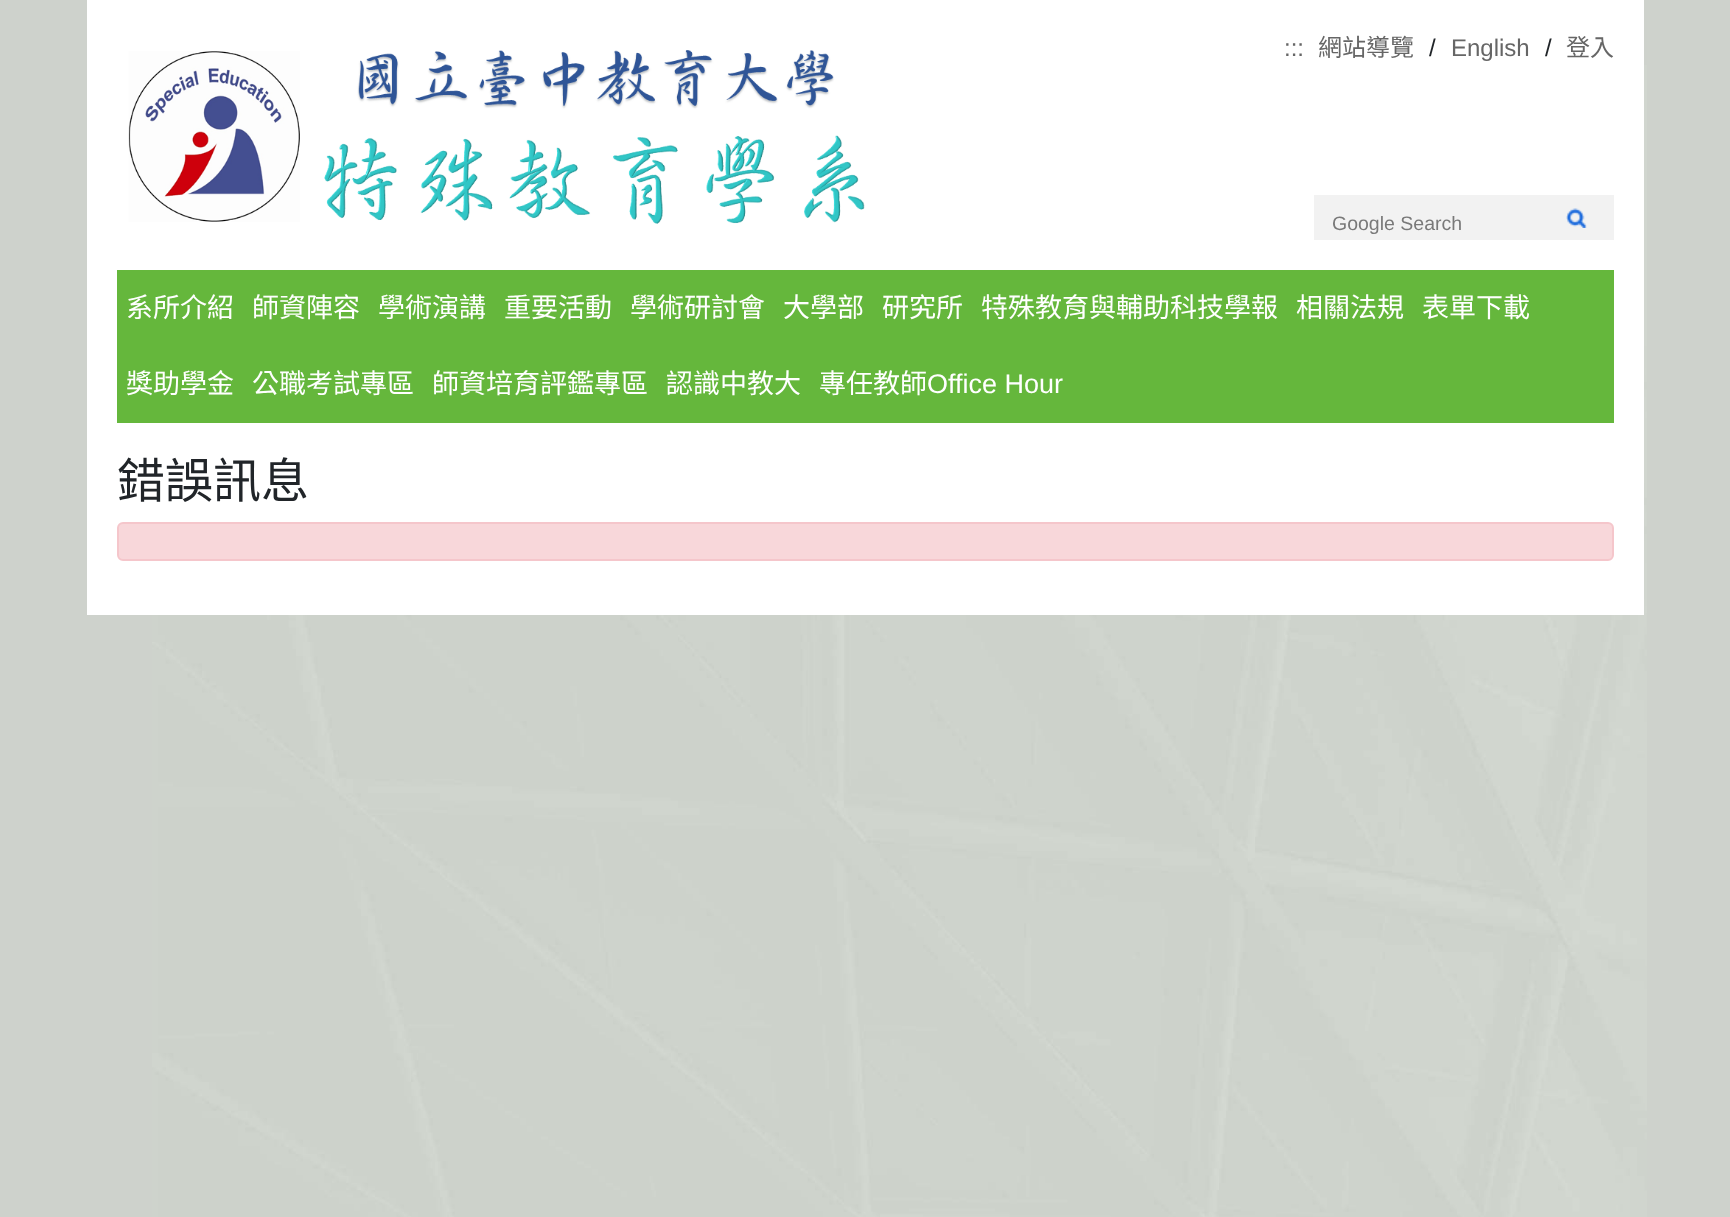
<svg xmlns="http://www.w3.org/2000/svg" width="1730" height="1217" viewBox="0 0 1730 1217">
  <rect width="100%" height="100%" fill="#ced2cc"/>
  <image x="152" y="65" width="1495" height="1152" href="img/1.png"/>
  <path d="M87 0h1557v270H87z" fill="#fff"/>
  <image x="128" y="50" width="737" height="174" href="img/2.png"/>
  <path d="M1314 195h300v45H1314z" fill="#f2f2f2"/>
  <image x="1566" y="208" width="21" height="20" href="img/3.png"/>
  <path d="M87 270h1557v345H87z" fill="#fff"/>
  <path d="M117 270h1497v153H117z" fill="#65b73c"/>
  <rect x="118" y="523" width="1495" height="37" rx="5" fill="#f8d7da" stroke="#f5c6cb" stroke-width="2"/>
  <text x="1284" y="56" font-family="Liberation Sans" font-size="24" fill="#666">:::</text>
  <text x="1318" y="56" font-family="Noto Sans CJK TC" font-size="24" fill="#666">網站導覽</text>
  <text x="1429" y="56" font-family="Liberation Sans" font-size="24" fill="#212529">/</text>
  <text x="1451" y="56" font-family="Liberation Sans" font-size="24" fill="#666">English</text>
  <text x="1545" y="56" font-family="Liberation Sans" font-size="24" fill="#212529">/</text>
  <text x="1566" y="56" font-family="Noto Sans CJK TC" font-size="24" fill="#666">登入</text>
  <text x="1332" y="230" font-family="Liberation Sans" font-size="19.5" fill="#797979">Google Search</text>
  <g font-family="Noto Sans CJK TC" font-size="27" fill="#fff">
    <text x="126" y="317">系所介紹</text>
    <text x="252" y="317">師資陣容</text>
    <text x="378" y="317">學術演講</text>
    <text x="504" y="317">重要活動</text>
    <text x="630" y="317">學術研討會</text>
    <text x="783" y="317">大學部</text>
    <text x="882" y="317">研究所</text>
    <text x="981" y="317">特殊教育與輔助科技學報</text>
    <text x="1296" y="317">相關法規</text>
    <text x="1422" y="317">表單下載</text>
    <text x="126" y="393">獎助學金</text>
    <text x="252" y="393">公職考試專區</text>
    <text x="432" y="393">師資培育評鑑專區</text>
    <text x="666" y="393">認識中教大</text>
    <text x="819" y="393">專任教師</text>
  </g>
  <text x="927" y="393" font-family="Liberation Sans" font-size="27" fill="#fff">Office Hour</text>
  <text x="117" y="498" font-family="Noto Sans CJK TC" font-size="48" fill="#212529">錯誤訊息</text>
</svg>
